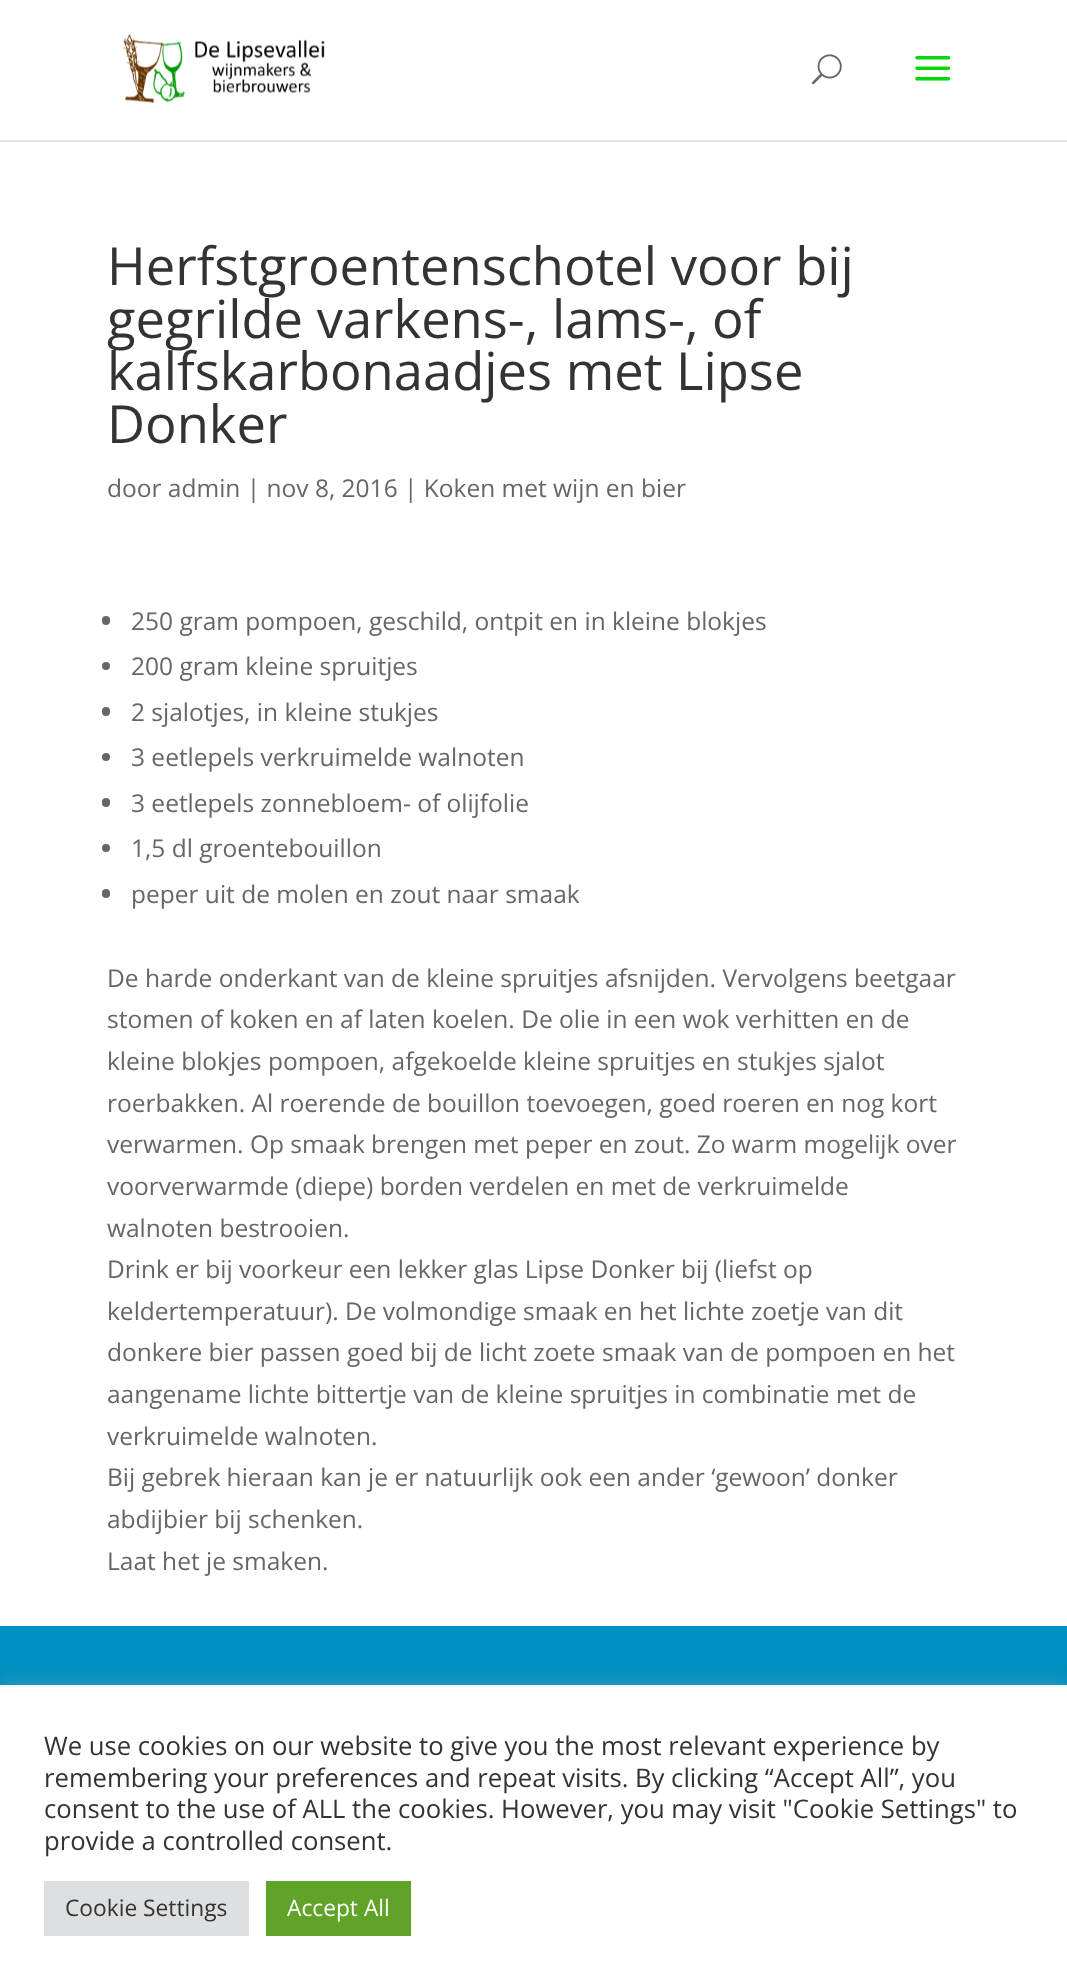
<svg xmlns="http://www.w3.org/2000/svg" width="1067" height="1988" viewBox="0 0 1067 1988">
  <rect width="100%" height="100%" fill="#0090c1"/>
  <path d="M0 140V142H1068V2V140Z" fill="#e6e6e6"/>
  <path d="M0 0h1067v140H0z" fill="#fff"/>
  <image x="123" y="33" width="202" height="71" href="img/1.png"/>
  <image x="811" y="54" width="31" height="31" href="img/2.png"/>
  <image x="915" y="56" width="36" height="25" href="img/3.png"/>
  <path d="M0 142h1067v1484H0z" fill="#fff"/>
  <rect x="102" y="616" width="8" height="9" rx="4" fill="#666"/>
  <circle cx="106" cy="666" r="4" fill="#666"/>
  <rect x="102" y="707" width="8" height="9" rx="4" fill="#666"/>
  <circle cx="106" cy="757" r="4" fill="#666"/>
  <rect x="102" y="798" width="8" height="9" rx="4" fill="#666"/>
  <circle cx="106" cy="848" r="4" fill="#666"/>
  <rect x="102" y="889" width="8" height="9" rx="4" fill="#666"/>
  <path d="M0 1684h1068v302H0z" fill="#acabab4d" filter="blur(9px)"/>
  <path d="M0 1685h1067v303H0z" fill="#fff"/>
  <path d="M44 1881h205v55H44z" fill="#dedfe0"/>
  <path d="M266 1881h145v55H266z" fill="#61a229"/>
  <g font-family="Open Sans" font-size="52.5" fill="#333">
    <text x="107" y="285">Herfstgroentenschotel voor bij</text>
    <text x="107" y="338">gegrilde varkens-, lams-, of</text>
    <text x="107" y="390">kalfskarbonaadjes met Lipse</text>
    <text x="107" y="443">Donker</text>
  </g>
  <g font-family="Open Sans" font-size="24.5" fill="#666">
    <text x="107" y="497">door admin | nov 8, 2016 | Koken met wijn en bier</text>
    <text x="131" y="630">250 gram pompoen, geschild, ontpit en in kleine blokjes</text>
    <text x="131" y="675">200 gram kleine spruitjes</text>
    <text x="131" y="721">2 sjalotjes, in kleine stukjes</text>
    <text x="131" y="766">3 eetlepels verkruimelde walnoten</text>
    <text x="131" y="812">3 eetlepels zonnebloem- of olijfolie</text>
    <text x="131" y="857">1,5 dl groentebouillon</text>
    <text x="131" y="903">peper uit de molen en zout naar smaak</text>
    <text x="107" y="987">De harde onderkant van de kleine spruitjes afsnijden. Vervolgens beetgaar</text>
    <text x="107" y="1028">stomen of koken en af laten koelen. De olie in een wok verhitten en de</text>
    <text x="107" y="1070">kleine blokjes pompoen, afgekoelde kleine spruitjes en stukjes sjalot</text>
    <text x="107" y="1112">roerbakken. Al roerende de bouillon toevoegen, goed roeren en nog kort</text>
    <text x="107" y="1153">verwarmen. Op smaak brengen met peper en zout. Zo warm mogelijk over</text>
    <text x="107" y="1195">voorverwarmde (diepe) borden verdelen en met de verkruimelde</text>
    <text x="107" y="1237">walnoten bestrooien.</text>
    <text x="107" y="1278">Drink er bij voorkeur een lekker glas Lipse Donker bij (liefst op</text>
    <text x="107" y="1320">keldertemperatuur). De volmondige smaak en het lichte zoetje van dit</text>
    <text x="107" y="1361">donkere bier passen goed bij de licht zoete smaak van de pompoen en het</text>
    <text x="107" y="1403">aangename lichte bittertje van de kleine spruitjes in combinatie met de</text>
    <text x="107" y="1445">verkruimelde walnoten.</text>
    <text x="107" y="1486">Bij gebrek hieraan kan je er natuurlijk ook een ander ‘gewoon’ donker</text>
    <text x="107" y="1528">abdijbier bij schenken.</text>
    <text x="107" y="1570">Laat het je smaken.</text>
  </g>
  <g font-family="Open Sans" font-size="25.65" fill="#333">
    <text x="44" y="1755">We use cookies on our website to give you the most relevant experience by</text>
    <text x="44" y="1787">remembering your preferences and repeat visits. By clicking “Accept All”, you</text>
    <text x="44" y="1818">consent to the use of ALL the cookies. However, you may visit "Cookie Settings" to</text>
    <text x="44" y="1850">provide a controlled consent.</text>
  </g>
  <text x="65" y="1916" font-family="Open Sans" font-size="22.75" fill="#333">Cookie Settings</text>
  <text x="287" y="1916" font-family="Open Sans" font-size="22.75" fill="#fff">Accept All</text>
</svg>
